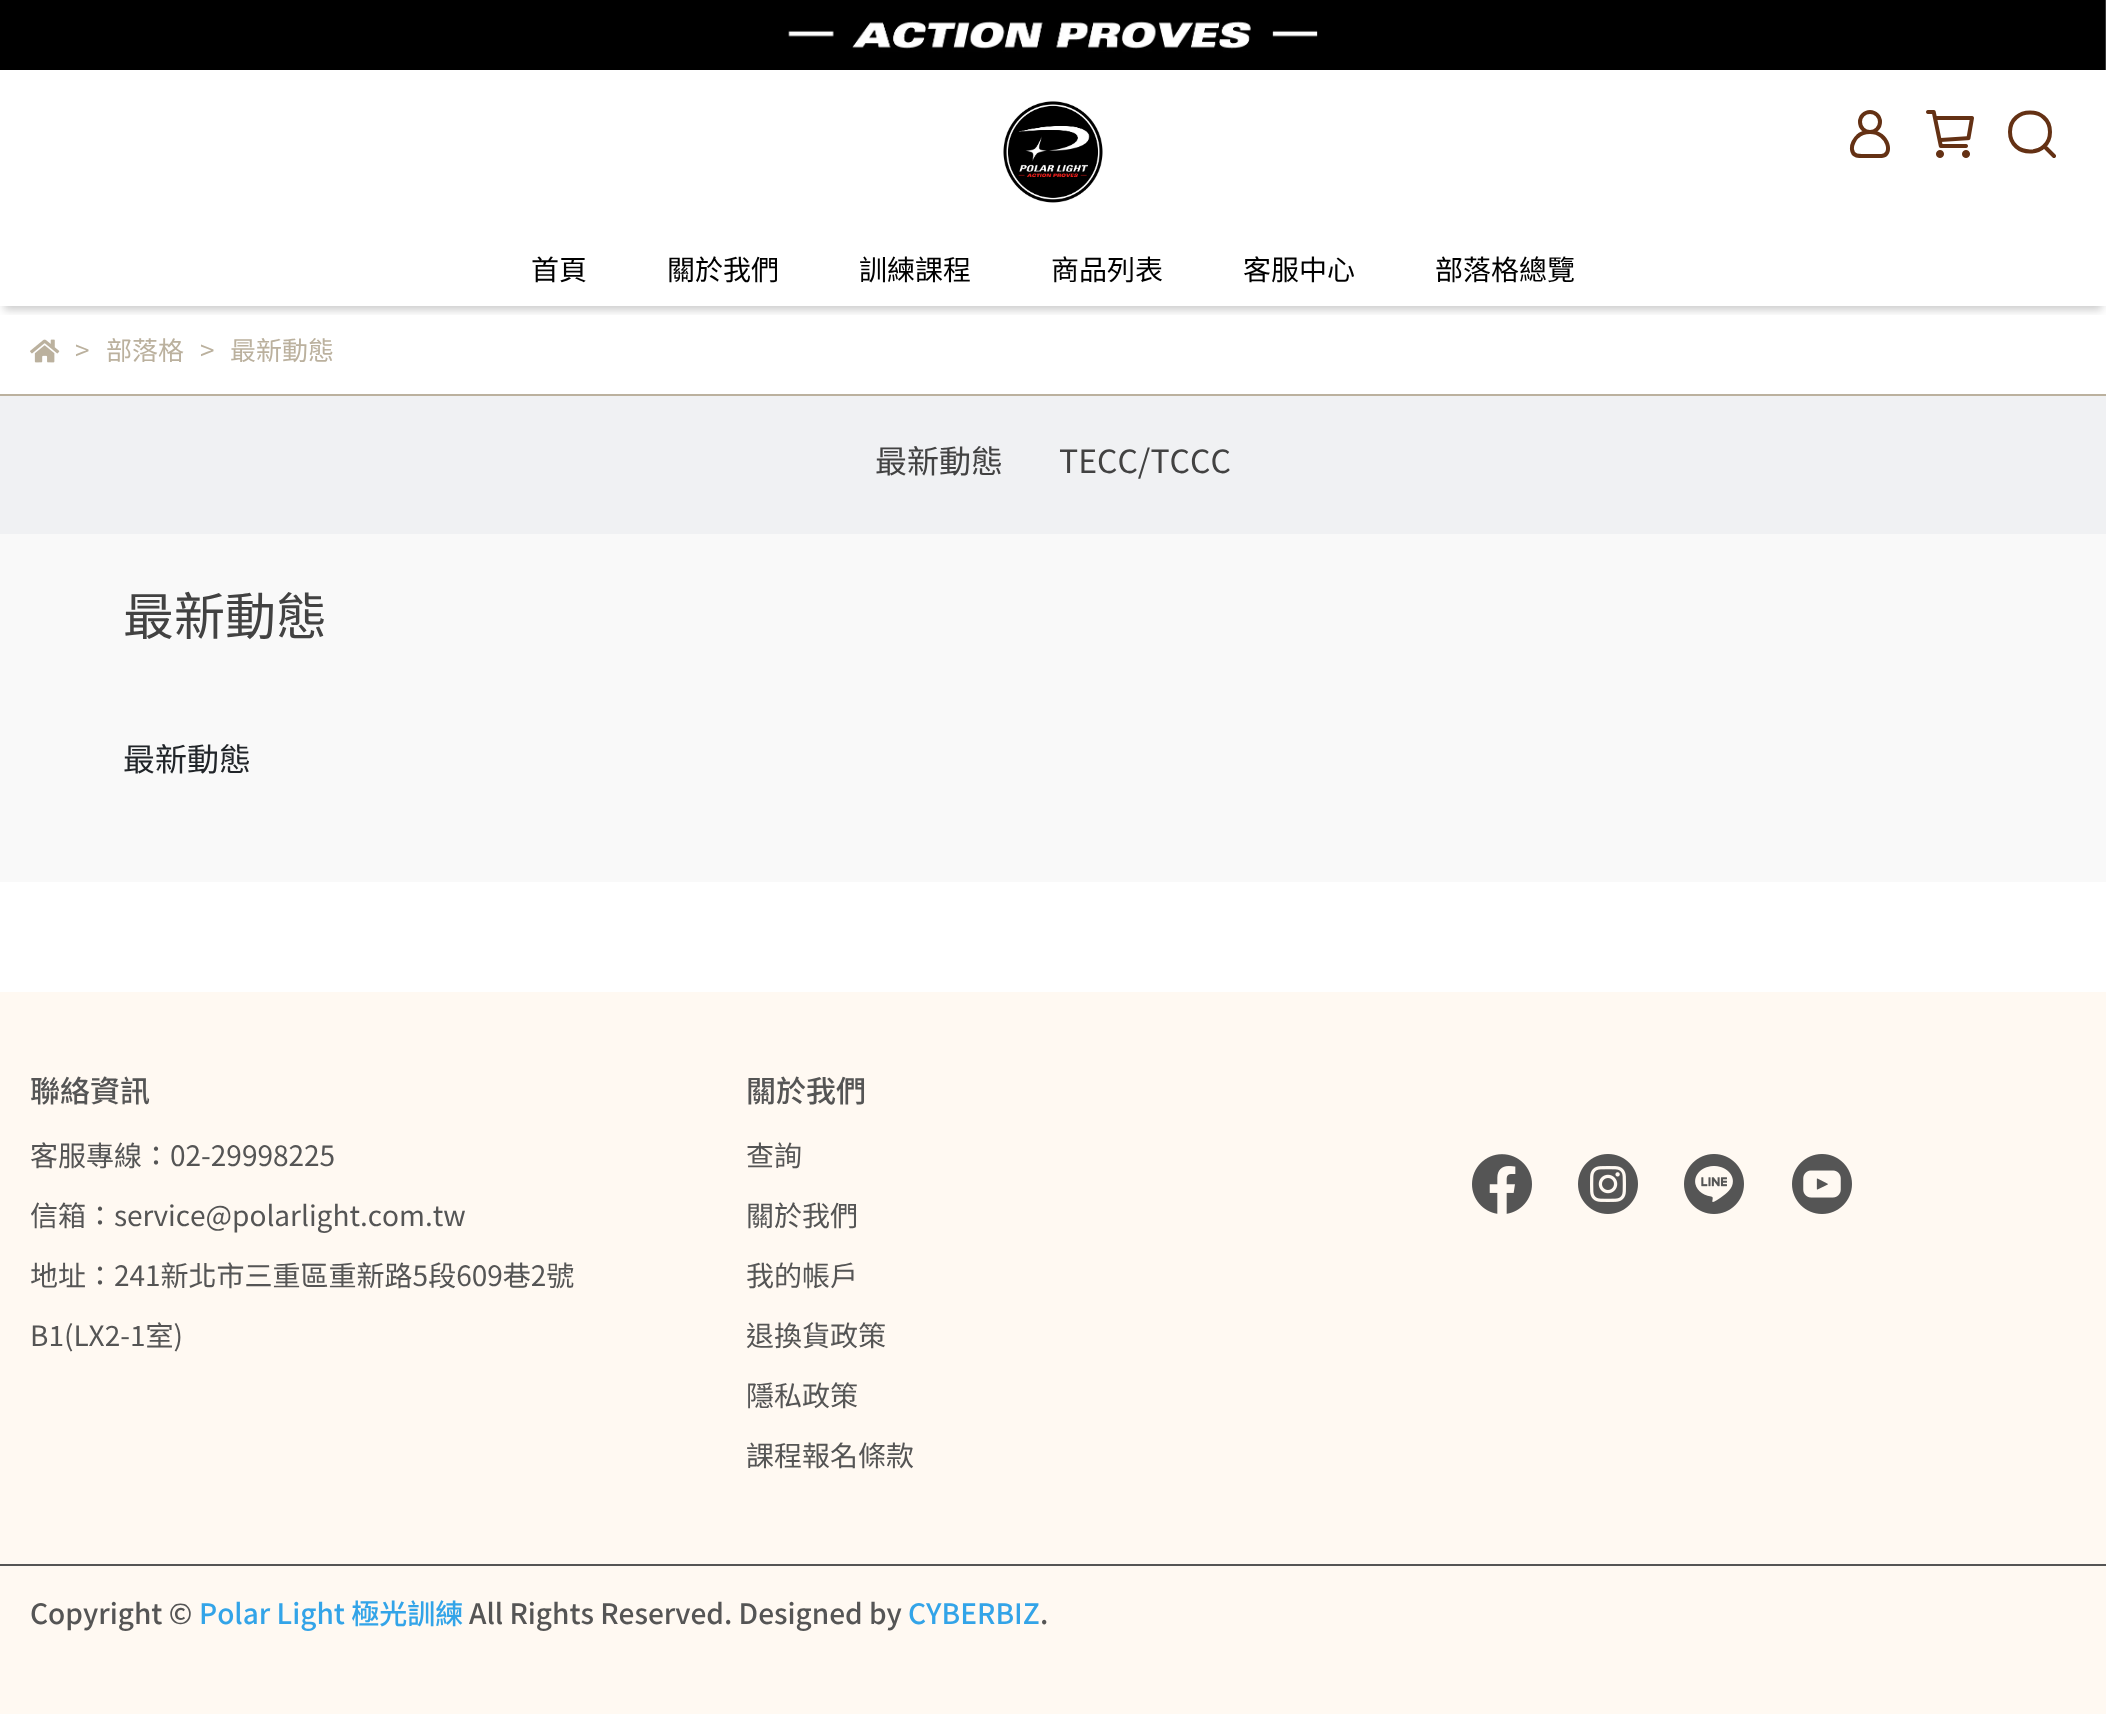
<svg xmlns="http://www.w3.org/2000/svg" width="2106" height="1714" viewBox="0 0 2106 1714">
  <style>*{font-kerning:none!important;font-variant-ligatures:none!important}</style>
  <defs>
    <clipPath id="clip1"><path d="M1846 110h48v48H1846z"/></clipPath>
    <clipPath id="clip2"><path d="M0 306h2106v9H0z"/></clipPath>
  </defs>
  <rect width="100%" height="100%" fill="#fff"/>
  <image x="0" y="0" width="2106" height="70" href="img/1.png"/>
  <image x="1003" y="101" width="100" height="102" href="img/2.png"/>
  <circle cx="1870" cy="122" r="10" fill="none" stroke="#643114" stroke-width="4"/>
  <g clip-path="url(#clip1)">
    <path d="M1881 156H1866.5C1863 156 1859.5 156.5 1856.5 155.5C1850.5 153.5 1851.5 146 1853.5 142C1854.5 140 1855.5 138 1857.5 136.5C1860.5 133.5 1865.5 132 1870 132C1889 132 1893.5 156.5 1881 156Z" fill="none" stroke="#643114" stroke-width="4"/>
  </g>
  <image x="1926" y="110" width="48" height="48" href="img/3.png"/>
  <path d="M2050 132C2050 158 2010 158 2010 132C2010 106 2050 106 2050 132ZM2046 148L2054 156" fill="none" stroke="#643114" stroke-width="4" stroke-linecap="round" stroke-linejoin="round"/>
  <g clip-path="url(#clip2)">
    <path d="M4 244h2098v66H4z" fill="#00000033" filter="blur(4px)"/>
  </g>
  <path d="M0 394h2106v2H0z" fill="#bbb19e"/>
  <image x="30" y="339" width="30" height="24" href="img/4.png"/>
  <path d="M0 534h2106v348H0z" fill="#f9f9f9"/>
  <path d="M0 396h2106v138H0z" fill="#f0f1f3"/>
  <path d="M0 992h2106v722H0z" fill="#fff9f2"/>
  <image x="1472" y="1154" width="60" height="60" href="img/5.png"/>
  <image x="1578" y="1154" width="60" height="60" href="img/6.png"/>
  <image x="1684" y="1154" width="60" height="60" href="img/7.png"/>
  <image x="1792" y="1154" width="60" height="60" href="img/8.png"/>
  <path d="M0 1564h2106v2H0z" fill="#555"/>
  <g font-family="Noto Sans TC" font-size="28" fill="#000">
    <text x="531" y="280">首頁</text>
    <text x="667" y="280">關於我們</text>
    <text x="859" y="280">訓練課程</text>
    <text x="1051" y="280">商品列表</text>
    <text x="1243" y="280">客服中心</text>
    <text x="1435" y="280">部落格總覽</text>
  </g>
  <g font-family="Noto Sans TC" font-size="26" fill="#bbb19e">
    <text x="75" y="360">&gt;</text>
    <text x="106" y="360">部落格</text>
    <text x="200" y="360">&gt;</text>
    <text x="230" y="360">最新動態</text>
  </g>
  <g font-family="Noto Sans TC" font-size="32" fill="#424242">
    <text x="875" y="473">最新動態</text>
    <text x="1059" y="473">TECC/TCCC</text>
  </g>
  <text x="123" y="635" font-family="Noto Sans TC" font-size="51" fill="#424242">最新動態</text>
  <text x="123" y="771" font-family="Noto Sans TC" font-size="32" fill="#212529">最新動態</text>
  <text x="30" y="1102" font-family="Noto Sans TC" font-size="30" font-weight="500" fill="#555">聯絡資訊</text>
  <g font-family="Noto Sans TC" font-size="28" fill="#555">
    <text x="30" y="1166">客服專線：02-29998225</text>
    <text x="30" y="1226">信箱：service@polarlight.com.tw</text>
    <text x="30" y="1286">地址：241新北市三重區重新路5段609巷2號</text>
    <text x="30" y="1346">B1(LX2-1室)</text>
  </g>
  <text x="746" y="1102" font-family="Noto Sans TC" font-size="30" font-weight="500" fill="#555">關於我們</text>
  <g font-family="Noto Sans TC" font-size="28" fill="#555">
    <text x="746" y="1166">查詢</text>
    <text x="746" y="1226">關於我們</text>
    <text x="746" y="1286">我的帳戶</text>
    <text x="746" y="1346">退換貨政策</text>
    <text x="746" y="1406">隱私政策</text>
    <text x="746" y="1466">課程報名條款</text>
  </g>
  <text x="30" y="1624" font-family="Noto Sans TC" font-size="28" font-weight="500" fill="#555">Copyright ©</text>
  <text x="199" y="1624" font-family="Noto Sans TC" font-size="28" font-weight="500" fill="#33a4e8">Polar Light 極光訓練</text>
  <text x="469" y="1624" font-family="Noto Sans TC" font-size="28" font-weight="500" fill="#555">All Rights Reserved. Designed by</text>
  <text x="908" y="1624" font-family="Noto Sans TC" font-size="28" font-weight="500" fill="#33a4e8">CYBERBIZ</text>
  <text x="1040" y="1624" font-family="Noto Sans TC" font-size="28" font-weight="500" fill="#555">.</text>
</svg>
